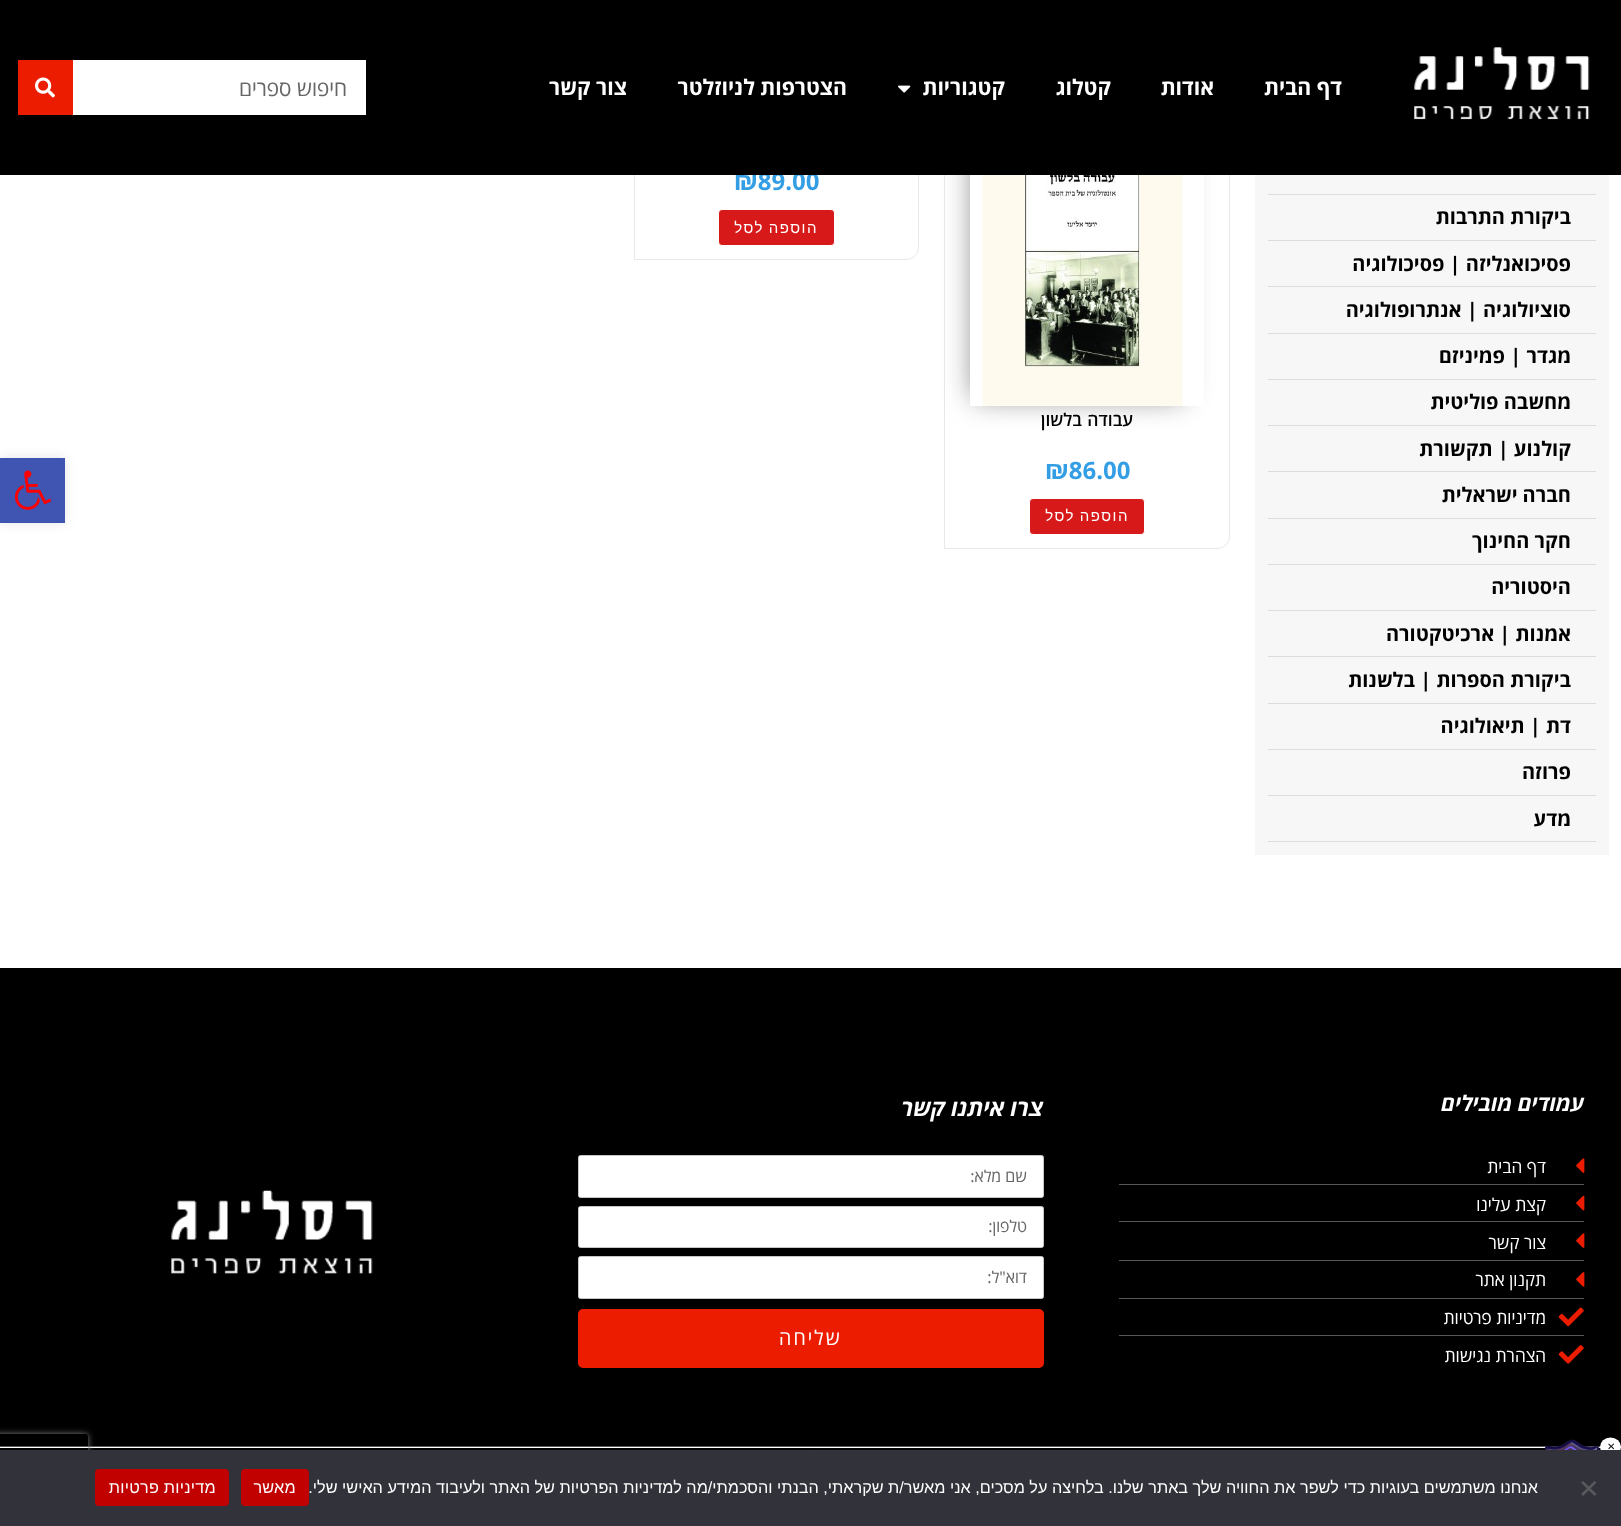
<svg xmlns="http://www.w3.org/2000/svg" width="1621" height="1526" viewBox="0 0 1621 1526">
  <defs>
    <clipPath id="clip1"><path d="M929 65H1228V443H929ZM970 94H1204V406H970Z" clip-rule="evenodd"/></clipPath>
    <clipPath id="clip2"><path d="M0 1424H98V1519H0ZM-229.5 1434H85.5C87 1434 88 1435 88 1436.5V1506.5C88 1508 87 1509 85.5 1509H-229.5C-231 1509-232 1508-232 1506.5V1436.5C-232 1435-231 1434-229.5 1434Z" clip-rule="evenodd"/></clipPath>
  </defs>
  <rect width="100%" height="100%" fill="#fff"/>
  <path d="M1255 175h354v680H1255z" fill="#f7f7f7"/>
  <path d="M1268 194h328v1H1268z" fill="#ddd"/>
  <path d="M1268 240h328v1H1268z" fill="#ddd"/>
  <path d="M1268 286h328v1H1268z" fill="#ddd"/>
  <path d="M1268 333h328v1H1268z" fill="#ddd"/>
  <path d="M1268 379h328v1H1268z" fill="#ddd"/>
  <path d="M1268 425h328v1H1268z" fill="#ddd"/>
  <path d="M1268 471h328v1H1268z" fill="#ddd"/>
  <path d="M1268 518h328v1H1268z" fill="#ddd"/>
  <path d="M1268 564h328v1H1268z" fill="#ddd"/>
  <path d="M1268 610h328v1H1268z" fill="#ddd"/>
  <path d="M1268 656h328v1H1268z" fill="#ddd"/>
  <path d="M1268 703h328v1H1268z" fill="#ddd"/>
  <path d="M1268 749h328v1H1268z" fill="#ddd"/>
  <path d="M1268 795h328v1H1268z" fill="#ddd"/>
  <path d="M1268 841h328v1H1268z" fill="#ddd"/>
  <path d="M647 68.5H906C913 68.5 918.5 74 918.5 81V247C918.5 254 913 259.5 906 259.5H634.5V81C634.5 74 640 68.5 647 68.5Z" fill="none" stroke="#e8e8e8"/>
  <rect x="718.5" y="209.5" width="116" height="36" rx="3.5" fill="#d81919" stroke="#fff"/>
  <path d="M957 68.5H1217C1224 68.5 1229.5 74 1229.5 81V536C1229.5 543 1224 548.5 1217 548.5H944.5V81C944.5 74 950 68.5 957 68.5Z" fill="none" stroke="#e8e8e8"/>
  <g clip-path="url(#clip1)">
    <path d="M974 110h209v288H974z" fill="#00000082" filter="blur(14.5px)"/>
  </g>
  <path d="M1203 175h1v185H1203z" fill="#fff"/>
  <image x="982" y="175" width="201" height="231" href="img/4.png"/>
  <rect x="1029.5" y="498.5" width="115" height="36" rx="3.5" fill="#d81919" stroke="#fff"/>
  <path d="M0 968h1621v478H0z" fill="#000"/>
  <image x="1576" y="1158" width="9" height="15" href="img/5.png"/>
  <path d="M1119 1184h465v1H1119z" fill="#585858"/>
  <image x="1576" y="1195" width="9" height="16" href="img/6.png"/>
  <path d="M1119 1221h465v1H1119z" fill="#585858"/>
  <image x="1576" y="1233" width="9" height="15" href="img/5.png"/>
  <path d="M1119 1260h465v1H1119z" fill="#585858"/>
  <image x="1576" y="1272" width="9" height="15" href="img/7.png"/>
  <path d="M1119 1298h465v1H1119z" fill="#585858"/>
  <image x="1558" y="1307" width="26" height="20" href="img/8.png"/>
  <path d="M1119 1335h465v1H1119z" fill="#585858"/>
  <image x="1558" y="1345" width="26" height="19" href="img/9.png"/>
  <rect x="578.5" y="1155.5" width="465" height="42" rx="2" fill="#fff" stroke="#c5c5c5"/>
  <rect x="578.5" y="1206.5" width="465" height="41" rx="2" fill="#fff" stroke="#c5c5c5"/>
  <rect x="578.5" y="1256.5" width="465" height="42" rx="2" fill="#fff" stroke="#c5c5c5"/>
  <rect x="578" y="1309" width="466" height="59" rx="5" fill="#ec1c00"/>
  <path d="M0 1448h811v2H0z" fill="#000"/>
  <path d="M0 1446h1621v1H0z" fill="#585858"/>
  <g clip-path="url(#clip2)">
    <rect x="-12" y="1434" width="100" height="75" rx="2.5" fill="#808080" filter="blur(3px)"/>
  </g>
  <image x="171" y="1190" width="202" height="84" href="img/10.png"/>
  <path d="M811 1448h810v2H811z" fill="#020101"/>
  <path d="M0 458h65v65H0z" fill="#0000001a" filter="blur(6px)"/>
  <path d="M0 458h65v65H0z" fill="#4054b2"/>
  <image x="14" y="470" width="38" height="40" href="img/11.png"/>
  <ellipse cx="1610.5" cy="1447" rx="10.5" ry="9.5" fill="#fff"/>
  <image x="1544" y="1439" width="56" height="11" href="img/12.png"/>
  <path d="M0 1450h1621v76H0z" fill="#32323a"/>
  <path d="M1594.5 1481L1596.5 1482.5L1583 1496L1581 1494Z" fill="#59595d"/>
  <path d="M1581 1482.5L1583 1481L1596.5 1494L1594.5 1496Z" fill="#59595d"/>
  <rect x="241" y="1469" width="68" height="37" rx="4" fill="#c10000"/>
  <rect x="95" y="1469" width="134" height="37" rx="4" fill="#c10000"/>
  <g font-family="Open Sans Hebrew" font-size="20" font-weight="bold" direction="rtl" fill="#000">
    <text x="1571" y="224">ביקורת התרבות</text>
    <text x="1571" y="271">פסיכואנליזה | פסיכולוגיה</text>
    <text x="1571" y="317">סוציולוגיה | אנתרופולוגיה</text>
    <text x="1571" y="363">מגדר | פמיניזם</text>
    <text x="1571" y="409">מחשבה פוליטית</text>
    <text x="1571" y="456">קולנוע | תקשורת</text>
    <text x="1571" y="502">חברה ישראלית</text>
    <text x="1571" y="548">חקר החינוך</text>
    <text x="1571" y="594">היסטוריה</text>
    <text x="1571" y="641">אמנות | ארכיטקטורה</text>
    <text x="1571" y="687">ביקורת הספרות | בלשנות</text>
    <text x="1571" y="733">דת | תיאולוגיה</text>
    <text x="1571" y="779">פרוזה</text>
    <text x="1571" y="826">מדע</text>
  </g>
  <text x="734" y="190" font-family="Open Sans Hebrew" font-size="24" font-weight="bold" fill="#349ee5">₪89.00</text>
  <path d="M0 0h1621v175H0z" fill="#000"/>
  <g font-family="Open Sans Hebrew" font-size="21.25" font-weight="bold" direction="rtl" fill="#fff">
    <text x="627" y="95">צור קשר</text>
    <text x="847" y="95">הצטרפות לניוזלטר</text>
  </g>
  <image x="898" y="85" width="13" height="8" href="img/2.png"/>
  <g font-family="Open Sans Hebrew" font-size="21.25" font-weight="bold" direction="rtl" fill="#fff">
    <text x="1005" y="95">קטגוריות</text>
    <text x="1111" y="95">קטלוג</text>
    <text x="1214" y="95">אודות</text>
    <text x="1342" y="95">דף הבית</text>
  </g>
  <path d="M18 60h55v55H18z" fill="#ec1c00"/>
  <image x="35" y="77" width="20" height="21" href="img/3.png"/>
  <path d="M73 60h293v55H73z" fill="#fff"/>
  <text x="347" y="96" font-family="Open Sans Hebrew" font-size="21.25" direction="rtl" fill="#666">חיפוש ספרים</text>
  <image x="1414" y="47" width="176" height="73" href="img/1.png"/>
  <text x="818" y="233" word-spacing="-1" font-family="Liberation Sans" font-size="15" letter-spacing="1.5" direction="rtl" fill="#fff">הוספה לסל</text>
  <g font-family="Open Sans" font-size="17.5" font-weight="600" direction="rtl" fill="#000">
    <text x="1133" y="426">עבודה</text>
    <text x="1082" y="426">בלשון</text>
  </g>
  <text x="1045" y="479" font-family="Open Sans Hebrew" font-size="24" font-weight="bold" fill="#349ee5">₪86.00</text>
  <text x="1129" y="521" word-spacing="-1" font-family="Liberation Sans" font-size="15" letter-spacing="1.5" direction="rtl" fill="#fff">הוספה לסל</text>
  <text x="1584" y="1111" font-family="Open Sans Hebrew" font-size="21.25" font-weight="bold" font-style="italic" direction="rtl" fill="#fff">עמודים מובילים</text>
  <g font-family="Open Sans Hebrew" font-size="17.5" direction="rtl" fill="#fff">
    <text x="1546" y="1173">דף הבית</text>
    <text x="1546" y="1211">קצת עלינו</text>
    <text x="1546" y="1249">צור קשר</text>
    <text x="1546" y="1286">תקנון אתר</text>
    <text x="1546" y="1324">מדיניות פרטיות</text>
    <text x="1546" y="1362">הצהרת נגישות</text>
  </g>
  <text x="1043" y="1116" font-family="Open Sans Hebrew" font-size="22.5" font-weight="bold" font-style="italic" direction="rtl" fill="#fff">צרו איתנו קשר</text>
  <g font-family="Open Sans Hebrew" font-size="16.25" direction="rtl" fill="#666">
    <text x="1027" y="1182">שם מלא:</text>
    <text x="1027" y="1232">טלפון:</text>
    <text x="1027" y="1283">דוא"ל:</text>
  </g>
  <text x="842" y="1345" font-family="Open Sans Hebrew" font-size="20" letter-spacing="2" direction="rtl" fill="#fff">שליחה</text>
  <text x="1607" y="1450" font-family="DejaVu Sans" font-size="10" fill="#000">✕</text>
  <text x="1538" y="1493" font-family="Liberation Sans" font-size="16.25" direction="rtl" fill="#fff">אנחנו משתמשים בעוגיות כדי לשפר את החוויה שלך באתר שלנו. בלחיצה על מסכים, אני מאשר/ת שקראתי, הבנתי והסכמתי/מה למדיניות הפרטיות של האתר ולעיבוד המידע האישי שלי.</text>
  <g font-family="Liberation Sans" font-size="16.25" letter-spacing="0.25" direction="rtl" fill="#fff">
    <text x="296" y="1493">מאשר</text>
    <text x="216" y="1493">מדיניות פרטיות</text>
  </g>
</svg>
